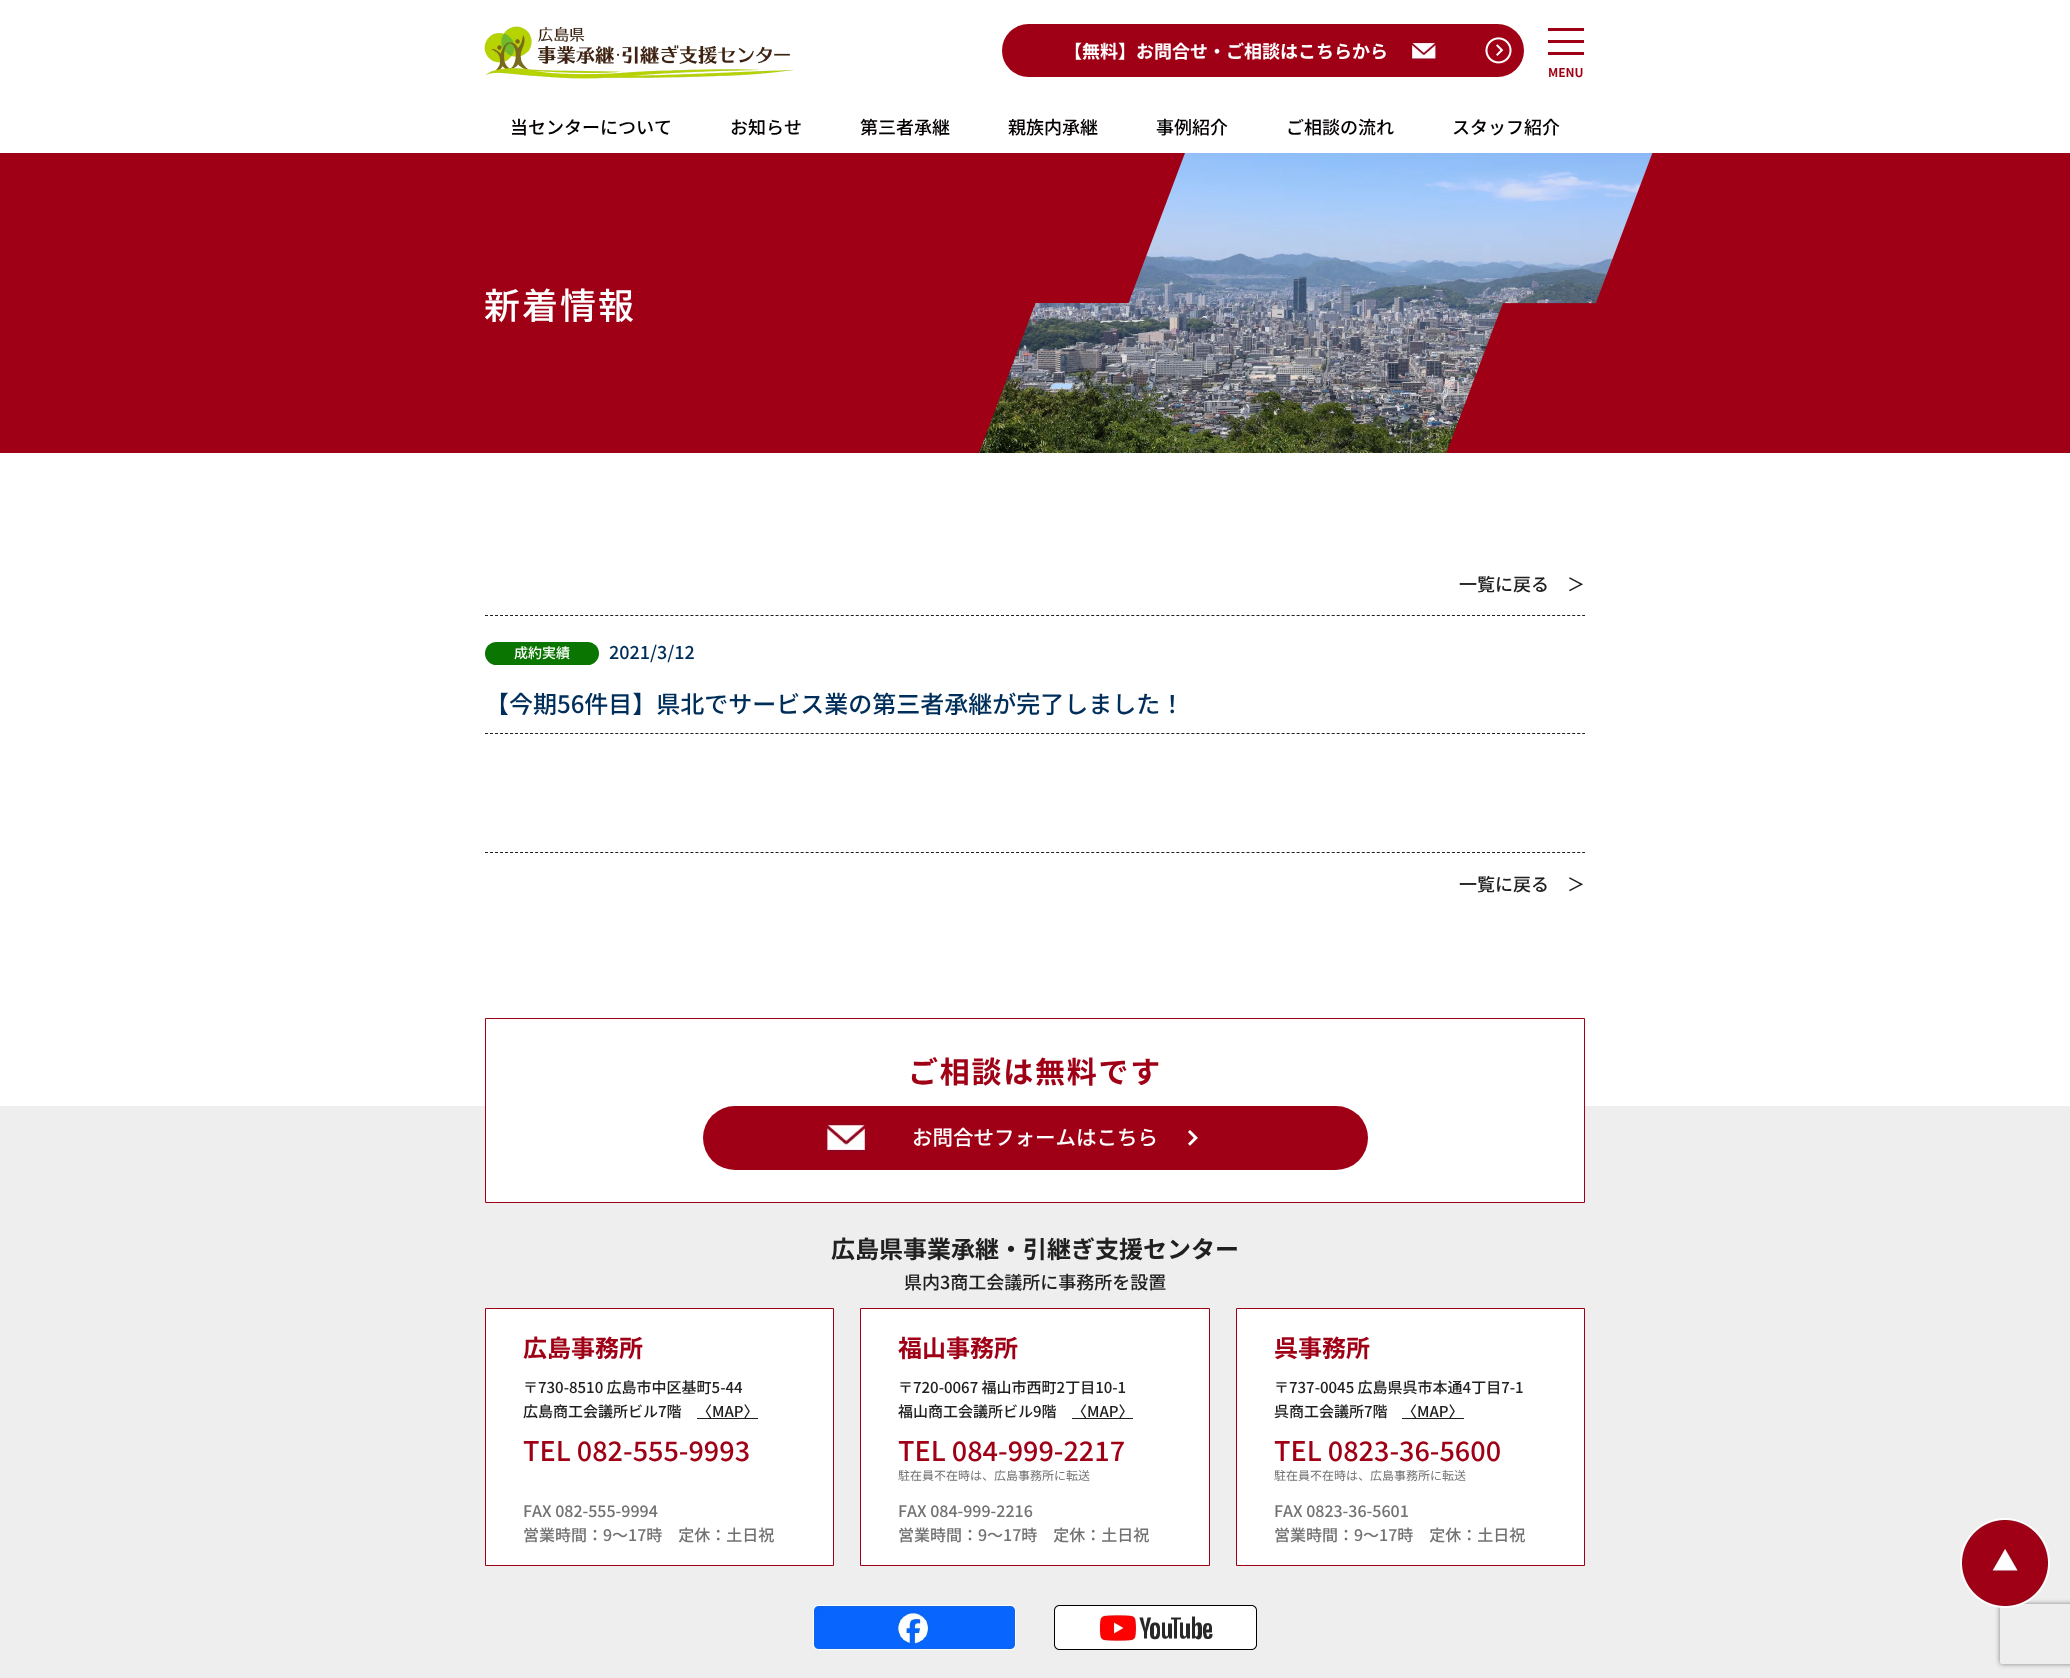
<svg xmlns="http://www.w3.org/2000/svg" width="2070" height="1678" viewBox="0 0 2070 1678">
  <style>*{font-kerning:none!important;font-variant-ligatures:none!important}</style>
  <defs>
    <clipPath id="clip1"><path d="M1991 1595H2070V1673H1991ZM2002 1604H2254C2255 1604 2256 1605 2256 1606V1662C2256 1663 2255 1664 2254 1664H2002C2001 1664 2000 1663 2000 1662V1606C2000 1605 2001 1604 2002 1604Z" clip-rule="evenodd"/></clipPath>
  </defs>
  <rect width="100%" height="100%" fill="#fff"/>
  <image x="484" y="26" width="310" height="53" href="img/1.png"/>
  <rect x="1002" y="24" width="522" height="53" rx="26.5" fill="#9f0015"/>
  <image x="1485" y="37" width="27" height="27" href="img/2.png"/>
  <image x="1410" y="42" width="27" height="18" href="img/3.png"/>
  <path d="M1548 28h36v3H1548z" fill="#9f0015"/>
  <path d="M1548 40h36v3H1548z" fill="#9f0015"/>
  <path d="M1548 52h36v3H1548z" fill="#9f0015"/>
  <path d="M0 153h2070v300H0z" fill="#9f0015"/>
  <image x="979" y="153" width="674" height="300" href="img/4.png"/>
  <path d="M485 615.5H1585" fill="none" stroke="#202020" stroke-dasharray="3 2.01"/>
  <path d="M485 733.5H1585" fill="none" stroke="#202020" stroke-dasharray="3 2.01"/>
  <rect x="485" y="642" width="114" height="23" rx="11.5" fill="#0a7500"/>
  <path d="M485 852.5H1585" fill="none" stroke="#202020" stroke-dasharray="3 2.01"/>
  <path d="M0 1106h2070v572H0z" fill="#eee"/>
  <path d="M486 1106h1098v96H486z" fill="#fff"/>
  <path d="M485.5 1018.5h1099v184H485.5z" fill="none" stroke="#9f0015"/>
  <rect x="703" y="1106" width="665" height="64" rx="32" fill="#9f0015"/>
  <image x="825" y="1123" width="373" height="30" href="img/5.png"/>
  <path d="M485.5 1308.5h348v257H485.5z" fill="#fff" stroke="#9f0015"/>
  <path d="M697 1418h61v1H697z" fill="#202020"/>
  <path d="M860.5 1308.5h349v257H860.5z" fill="#fff" stroke="#9f0015"/>
  <path d="M1072 1418h61v1H1072z" fill="#202020"/>
  <path d="M1236.5 1308.5h348v257H1236.5z" fill="#fff" stroke="#9f0015"/>
  <path d="M1402 1418h62v1H1402z" fill="#202020"/>
  <g clip-path="url(#clip1)">
    <rect x="2000" y="1604" width="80" height="60" rx="2" fill="#808080" filter="blur(2.5px)"/>
  </g>
  <image x="1960" y="1518" width="90" height="90" href="img/6.png"/>
  <image x="813" y="1605" width="203" height="45" href="img/7.png"/>
  <image x="1054" y="1605" width="203" height="45" href="img/8.png"/>
  <text x="1064" y="58" font-family="Noto Sans JP" font-size="18" font-weight="bold" fill="#fff">【無料】お問合せ・ご相談はこちらから</text>
  <text x="1548" y="77" font-family="Noto Sans JP" font-size="12" font-weight="bold" fill="#9f0015">MENU</text>
  <g font-family="Noto Sans JP" font-size="18" font-weight="500" fill="#040000">
    <text x="510" y="134">当センターについて</text>
    <text x="730" y="134">お知らせ</text>
    <text x="860" y="134">第三者承継</text>
    <text x="1008" y="134">親族内承継</text>
    <text x="1156" y="134">事例紹介</text>
    <text x="1286" y="134">ご相談の流れ</text>
    <text x="1452" y="134">スタッフ紹介</text>
  </g>
  <text x="484" y="319" font-family="Noto Sans JP" font-size="36" font-weight="500" letter-spacing="2" fill="#fff">新着情報</text>
  <text x="1459" y="591" font-family="Noto Sans JP" font-size="18" font-weight="500" fill="#202020">一覧に戻る　＞</text>
  <text x="514" y="658" font-family="Noto Sans JP" font-size="14" font-weight="500" fill="#fff">成約実績</text>
  <text x="609" y="659" font-family="Noto Sans JP" font-size="18" font-weight="500" fill="#002e5a">2021/3/12</text>
  <text x="485" y="713" font-family="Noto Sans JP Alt" font-size="24" font-weight="500" fill="#002e5a">【今期56件目】県北でサービス業の第三者承継が完了しました！</text>
  <text x="1459" y="891" font-family="Noto Sans JP" font-size="18" font-weight="500" fill="#202020">一覧に戻る　＞</text>
  <text x="908" y="1083" font-family="Noto Sans JP" font-size="30" font-weight="bold" letter-spacing="1.75" fill="#9f0015">ご相談は無料です</text>
  <text x="912" y="1145" font-family="Noto Sans JP" font-size="20.5" font-weight="500" fill="#fff">お問合せフォームはこちら</text>
  <text x="831" y="1258" font-family="Noto Sans JP" font-size="24" font-weight="bold" fill="#202020">広島県事業承継・引継ぎ支援センター</text>
  <text x="904" y="1289" font-family="Noto Sans JP" font-size="18" font-weight="500" fill="#202020">県内3商工会議所に事務所を設置</text>
  <text x="523" y="1357" font-family="Noto Sans JP" font-size="24" font-weight="bold" fill="#9f0015">広島事務所</text>
  <g font-family="Noto Sans JP" font-size="15" font-weight="500" fill="#202020">
    <text x="523" y="1393">〒730-8510 広島市中区基町5-44</text>
    <text x="523" y="1417">広島商工会議所ビル7階</text>
    <text x="697" y="1417">〈MAP〉</text>
  </g>
  <text x="523" y="1461" font-family="Noto Sans JP" font-size="27" font-weight="500" fill="#9f0015">TEL 082-555-9993</text>
  <g font-family="Noto Sans JP" font-size="16" font-weight="500" fill="#727272">
    <text x="523" y="1517">FAX 082-555-9994</text>
    <text x="523" y="1541">営業時間：9～17時　定休：土日祝</text>
  </g>
  <text x="898" y="1357" font-family="Noto Sans JP" font-size="24" font-weight="bold" fill="#9f0015">福山事務所</text>
  <g font-family="Noto Sans JP" font-size="15" font-weight="500" fill="#202020">
    <text x="898" y="1393">〒720-0067 福山市西町2丁目10-1</text>
    <text x="898" y="1417">福山商工会議所ビル9階</text>
    <text x="1072" y="1417">〈MAP〉</text>
  </g>
  <text x="898" y="1461" font-family="Noto Sans JP" font-size="27" font-weight="500" fill="#9f0015">TEL 084-999-2217</text>
  <text x="898" y="1480" font-family="Noto Sans JP" font-size="12" fill="#727272">駐在員不在時は、広島事務所に転送</text>
  <g font-family="Noto Sans JP" font-size="16" font-weight="500" fill="#727272">
    <text x="898" y="1517">FAX 084-999-2216</text>
    <text x="898" y="1541">営業時間：9～17時　定休：土日祝</text>
  </g>
  <text x="1274" y="1357" font-family="Noto Sans JP" font-size="24" font-weight="bold" fill="#9f0015">呉事務所</text>
  <g font-family="Noto Sans JP" font-size="15" font-weight="500" fill="#202020">
    <text x="1274" y="1393">〒737-0045 広島県呉市本通4丁目7-1</text>
    <text x="1274" y="1417">呉商工会議所7階</text>
    <text x="1402" y="1417">〈MAP〉</text>
  </g>
  <text x="1274" y="1461" font-family="Noto Sans JP" font-size="27" font-weight="500" fill="#9f0015">TEL 0823-36-5600</text>
  <text x="1274" y="1480" font-family="Noto Sans JP" font-size="12" fill="#727272">駐在員不在時は、広島事務所に転送</text>
  <g font-family="Noto Sans JP" font-size="16" font-weight="500" fill="#727272">
    <text x="1274" y="1517">FAX 0823-36-5601</text>
    <text x="1274" y="1541">営業時間：9～17時　定休：土日祝</text>
  </g>
</svg>
